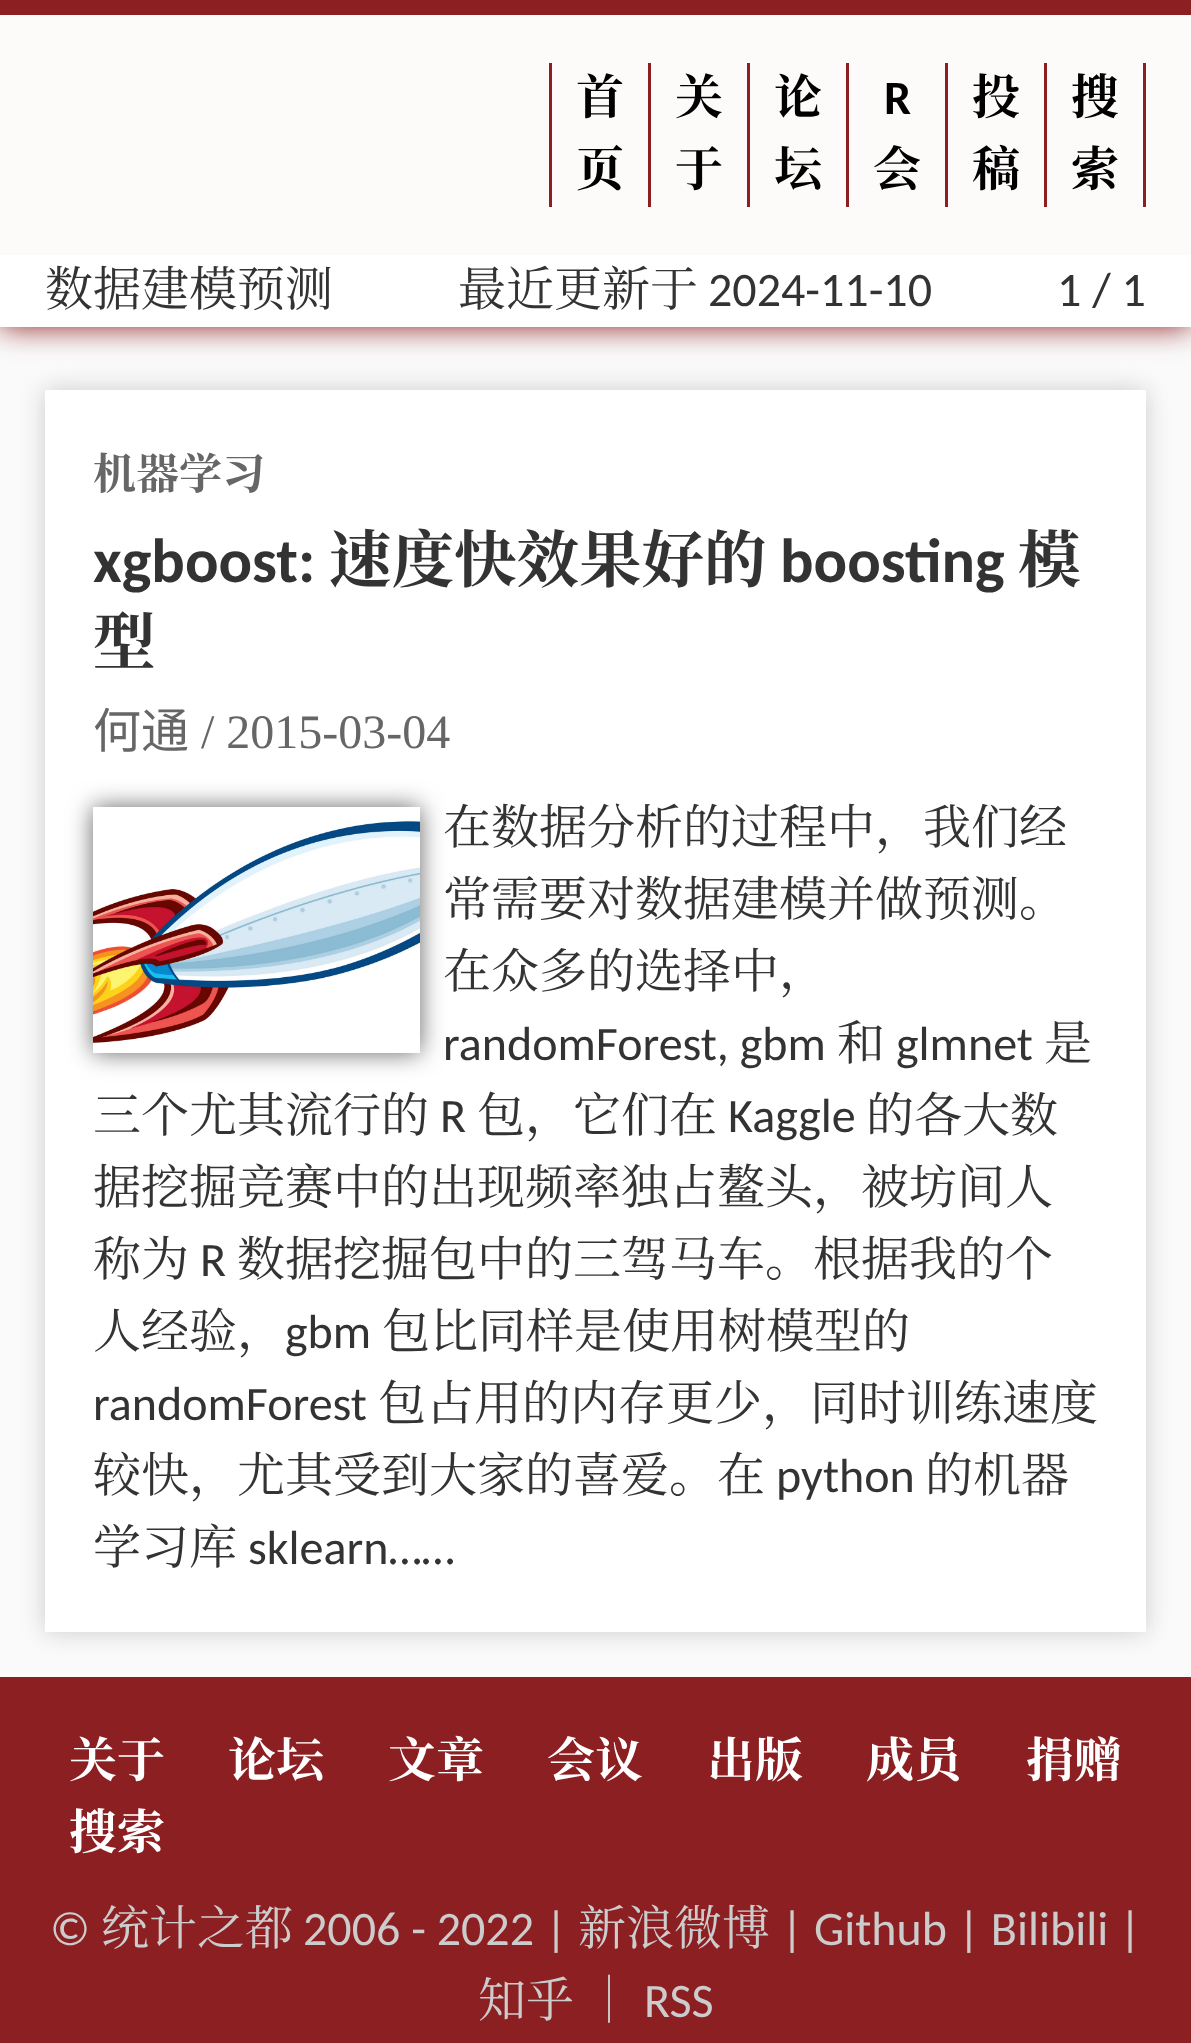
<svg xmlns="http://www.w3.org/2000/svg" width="1191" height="2043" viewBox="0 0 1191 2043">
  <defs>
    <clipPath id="clip1"><path d="M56 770H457V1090H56ZM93 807H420V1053H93Z" clip-rule="evenodd"/></clipPath>
  </defs>
  <rect width="100%" height="100%" fill="#fafafa"/>
  <path d="M0 0h1191v327H0z" fill="#8c1f22" filter="blur(15px)"/>
  <path d="M0 255h1191v72H0z" fill="#fff"/>
  <path d="M0 0h1191v15H0z" fill="#8c1f22"/>
  <path d="M0 15h1191v240H0z" fill="#fdfafa"/>
  <path d="M648 63h3v144H648z" fill="#8c1f22"/>
  <path d="M549 63h3v144H549z" fill="#8c1f22"/>
  <path d="M747 63h3v144H747z" fill="#8c1f22"/>
  <path d="M846 63h3v144H846z" fill="#8c1f22"/>
  <path d="M945 63h3v144H945z" fill="#8c1f22"/>
  <path d="M1044 63h3v144H1044z" fill="#8c1f22"/>
  <path d="M1143 63h3v144H1143z" fill="#8c1f22"/>
  <path d="M45 390h1101v1242H45z" fill="#ccc" filter="blur(12px)"/>
  <path d="M45 390h1101v1242H45z" fill="#fff"/>
  <g clip-path="url(#clip1)">
    <path d="M93 807h327v246H93z" fill="#666" filter="blur(12px)"/>
  </g>
  <image x="93" y="821" width="327" height="222" href="img/1.png"/>
  <path d="M0 1677h1191v366H0z" fill="#8c1f22"/>
  <g font-family="Noto Serif CJK SC" font-size="48" font-weight="bold" fill="#000">
    <text x="576" y="114">首</text>
    <text x="576" y="186">页</text>
    <text x="675" y="114">关</text>
    <text x="675" y="186">于</text>
    <text x="774" y="114">论</text>
    <text x="774" y="186">坛</text>
  </g>
  <text x="884" y="114" font-family="Carlito" font-size="48" font-weight="bold" fill="#000">R</text>
  <g font-family="Noto Serif CJK SC" font-size="48" font-weight="bold" fill="#000">
    <text x="873" y="186">会</text>
    <text x="972" y="114">投</text>
    <text x="972" y="186">稿</text>
    <text x="1071" y="114">搜</text>
    <text x="1071" y="186">索</text>
  </g>
  <g font-family="Noto Serif CJK SC" font-size="48" fill="#333">
    <text x="45" y="306">数据建模预测</text>
    <text x="458" y="306">最近更新于</text>
  </g>
  <g font-family="Carlito" font-size="48" fill="#333">
    <text x="708" y="306">2024-11-10</text>
    <text x="1057" y="306">1 / 1</text>
  </g>
  <text x="93" y="489" font-family="Noto Serif CJK SC" font-size="43" font-weight="bold" fill="#666">机器学习</text>
  <text x="93" y="582" font-family="Carlito" font-size="62.5" font-weight="bold" fill="#333">xgboost:</text>
  <text x="329" y="582" font-family="Noto Serif CJK SC" font-size="62.5" font-weight="bold" fill="#333">速度快效果好的</text>
  <text x="780" y="582" font-family="Carlito" font-size="62.5" font-weight="bold" fill="#333">boosting</text>
  <g font-family="Noto Serif CJK SC" font-size="62.5" font-weight="bold" fill="#333">
    <text x="1018" y="582">模</text>
    <text x="93" y="664">型</text>
  </g>
  <text x="93" y="748" font-family="Noto Sans CJK SC" font-size="48" fill="#666">何通</text>
  <text x="201" y="748" font-family="Liberation Serif" font-size="48" fill="#666">/ 2015-03-04</text>
  <g font-family="Noto Serif CJK SC" font-size="48" fill="#333">
    <text x="443" y="844">在数据分析的过程中，我们经</text>
    <text x="443" y="916">常需要对数据建模并做预测。</text>
    <text x="443" y="988">在众多的选择中，</text>
  </g>
  <text x="443" y="1060" font-family="Carlito" font-size="48" fill="#333">randomForest, gbm</text>
  <text x="837" y="1060" font-family="Noto Serif CJK SC" font-size="48" fill="#333">和</text>
  <text x="896" y="1060" font-family="Carlito" font-size="48" fill="#333">glmnet</text>
  <g font-family="Noto Serif CJK SC" font-size="48" fill="#333">
    <text x="1044" y="1060">是</text>
    <text x="93" y="1132">三个尤其流行的</text>
  </g>
  <text x="440" y="1132" font-family="Carlito" font-size="48" fill="#333">R</text>
  <text x="477" y="1132" font-family="Noto Serif CJK SC" font-size="48" fill="#333">包，它们在</text>
  <text x="728" y="1132" font-family="Carlito" font-size="48" fill="#333">Kaggle</text>
  <g font-family="Noto Serif CJK SC" font-size="48" fill="#333">
    <text x="866" y="1132">的各大数</text>
    <text x="93" y="1204">据挖掘竞赛中的出现频率独占鳌头，被坊间人</text>
    <text x="93" y="1276">称为</text>
  </g>
  <text x="200" y="1276" font-family="Carlito" font-size="48" fill="#333">R</text>
  <g font-family="Noto Serif CJK SC" font-size="48" fill="#333">
    <text x="237" y="1276">数据挖掘包中的三驾马车。根据我的个</text>
    <text x="93" y="1348">人经验，</text>
  </g>
  <text x="285" y="1348" font-family="Carlito" font-size="48" fill="#333">gbm</text>
  <text x="382" y="1348" font-family="Noto Serif CJK SC" font-size="48" fill="#333">包比同样是使用树模型的</text>
  <text x="93" y="1420" font-family="Carlito" font-size="48" fill="#333">randomForest</text>
  <g font-family="Noto Serif CJK SC" font-size="48" fill="#333">
    <text x="378" y="1420">包占用的内存更少，同时训练速度</text>
    <text x="93" y="1492">较快，尤其受到大家的喜爱。在</text>
  </g>
  <text x="776" y="1492" font-family="Carlito" font-size="48" fill="#333">python</text>
  <g font-family="Noto Serif CJK SC" font-size="48" fill="#333">
    <text x="925" y="1492">的机器</text>
    <text x="93" y="1564">学习库</text>
  </g>
  <text x="248" y="1564" font-family="Carlito" font-size="48" fill="#333">sklearn……</text>
  <g font-family="Noto Serif CJK SC" font-size="48" font-weight="bold" fill="#fff">
    <text x="69" y="1777">关于</text>
    <text x="228" y="1777">论坛</text>
    <text x="388" y="1777">文章</text>
    <text x="547" y="1777">会议</text>
    <text x="707" y="1777">出版</text>
    <text x="866" y="1777">成员</text>
    <text x="1026" y="1777">捐赠</text>
    <text x="69" y="1849">搜索</text>
  </g>
  <text x="50" y="1945" font-family="Carlito" font-size="48" fill="#ccc">©</text>
  <text x="101" y="1945" font-family="Noto Serif CJK SC" font-size="48" fill="#ccc">统计之都</text>
  <text x="303" y="1945" font-family="Carlito" font-size="48" fill="#ccc">2006 - 2022 |</text>
  <text x="578" y="1945" font-family="Noto Serif CJK SC" font-size="48" fill="#ccc">新浪微博</text>
  <text x="781" y="1945" font-family="Carlito" font-size="48" fill="#ccc">| Github | Bilibili |</text>
  <g font-family="Noto Serif CJK SC" font-size="48" fill="#ccc">
    <text x="478" y="2017">知乎</text>
    <text x="585" y="2017">｜</text>
  </g>
  <text x="644" y="2017" font-family="Carlito" font-size="48" fill="#ccc">RSS</text>
</svg>
